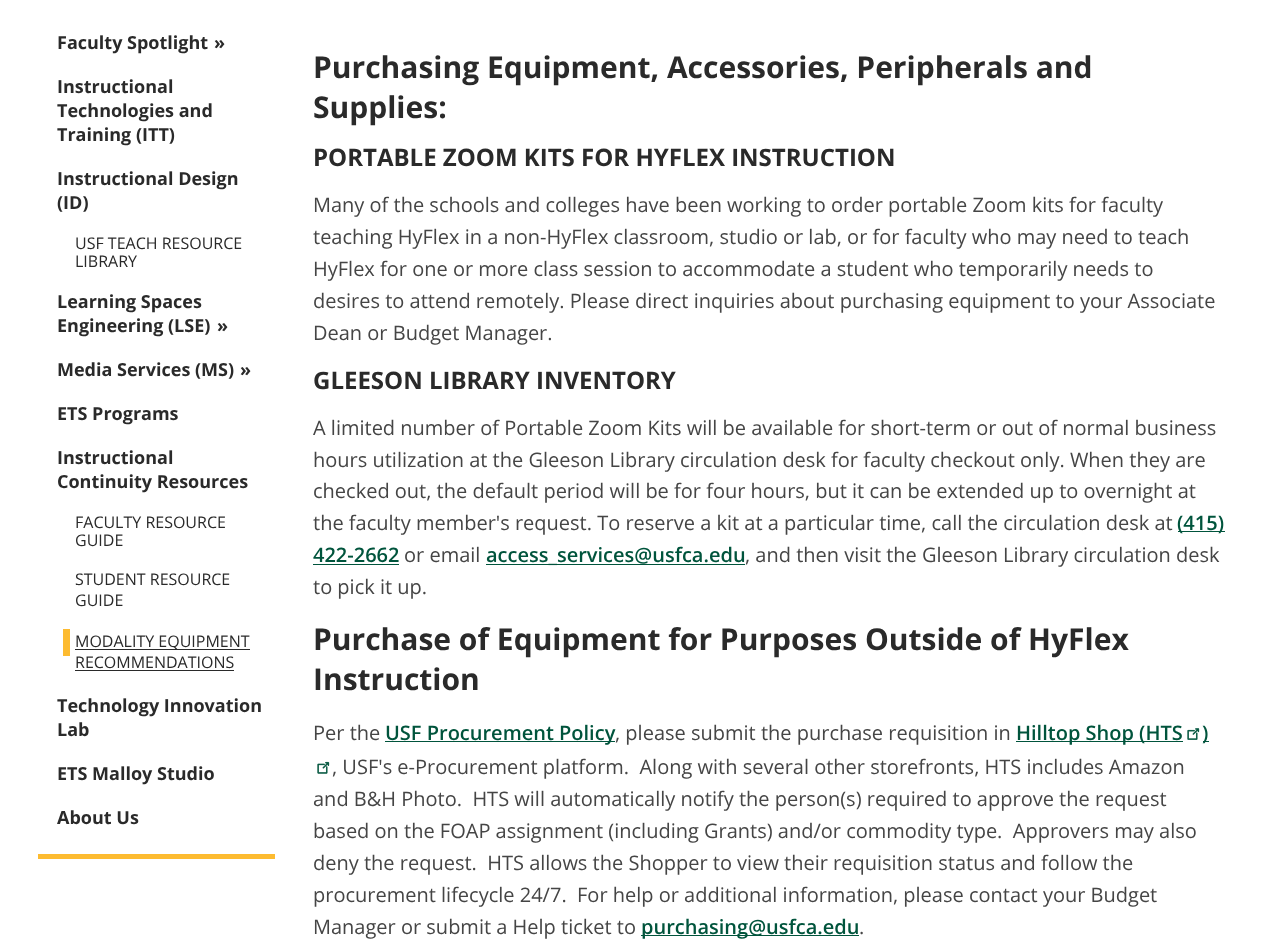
<svg xmlns="http://www.w3.org/2000/svg" width="1267" height="950" viewBox="0 0 1267 950">
  <rect width="100%" height="100%" fill="#fff"/>
  <path d="M38 854h237v5H38z" fill="#fdbb30"/>
  <path d="M63 629h7v27H63z" fill="#fdbb30"/>
  <path d="M75 649h175v1H75z" fill="#2a2a2a"/>
  <path d="M75 670h159v1H75z" fill="#2a2a2a"/>
  <path d="M1178 531h47v1H1178z" fill="#00543c"/>
  <path d="M313 564h86v1H313z" fill="#00543c"/>
  <path d="M486 564h259v1H486z" fill="#00543c"/>
  <path d="M385 741h230v1H385z" fill="#00543c"/>
  <path d="M1016 741h167v1H1016z" fill="#00543c"/>
  <image x="1187" y="728" width="13" height="12" href="img/1.png"/>
  <path d="M1203 741h6v1H1203z" fill="#00543c"/>
  <image x="317" y="761" width="13" height="13" href="img/2.png"/>
  <path d="M641 935h218v1H641z" fill="#00543c"/>
  <g font-family="Open Sans" font-size="18" font-weight="bold" fill="#2a2a2a">
    <text x="57" y="49">Faculty Spotlight</text>
    <text x="214" y="49">»</text>
    <text x="57" y="93">Instructional</text>
    <text x="57" y="117">Technologies and</text>
    <text x="57" y="141">Training (ITT)</text>
    <text x="57" y="185">Instructional Design</text>
    <text x="57" y="209">(ID)</text>
  </g>
  <g font-family="Open Sans" font-size="16" fill="#2a2a2a">
    <text x="75" y="249">USF TEACH RESOURCE</text>
    <text x="75" y="267">LIBRARY</text>
  </g>
  <g font-family="Open Sans" font-size="18" font-weight="bold" fill="#2a2a2a">
    <text x="57" y="308">Learning Spaces</text>
    <text x="57" y="332">Engineering (LSE)</text>
    <text x="217" y="332">»</text>
    <text x="57" y="376">Media Services (MS)</text>
    <text x="240" y="376">»</text>
    <text x="57" y="420">ETS Programs</text>
    <text x="57" y="464">Instructional</text>
    <text x="57" y="488">Continuity Resources</text>
  </g>
  <g font-family="Open Sans" font-size="16" fill="#2a2a2a">
    <text x="75" y="528">FACULTY RESOURCE</text>
    <text x="75" y="546">GUIDE</text>
    <text x="75" y="585">STUDENT RESOURCE</text>
    <text x="75" y="606">GUIDE</text>
    <text x="75" y="647">MODALITY EQUIPMENT</text>
    <text x="75" y="668">RECOMMENDATIONS</text>
  </g>
  <g font-family="Open Sans" font-size="18" font-weight="bold" fill="#2a2a2a">
    <text x="57" y="712">Technology Innovation</text>
    <text x="57" y="736">Lab</text>
    <text x="57" y="780">ETS Malloy Studio</text>
    <text x="57" y="824">About Us</text>
  </g>
  <g font-family="Open Sans" font-size="30" font-weight="bold" fill="#2a2a2a">
    <text x="313" y="78">Purchasing Equipment, Accessories, Peripherals and</text>
    <text x="313" y="118">Supplies:</text>
  </g>
  <text x="313" y="166" font-family="Open Sans" font-size="24" font-weight="bold" fill="#2a2a2a">PORTABLE ZOOM KITS FOR HYFLEX INSTRUCTION</text>
  <g font-family="Open Sans" font-size="20" fill="#454545">
    <text x="313" y="212">Many of the schools and colleges have been working to order portable Zoom kits for faculty</text>
    <text x="313" y="244">teaching HyFlex in a non-HyFlex classroom, studio or lab, or for faculty who may need to teach</text>
    <text x="313" y="276">HyFlex for one or more class session to accommodate a student who temporarily needs to</text>
    <text x="313" y="308">desires to attend remotely. Please direct inquiries about purchasing equipment to your Associate</text>
    <text x="313" y="340">Dean or Budget Manager.</text>
  </g>
  <text x="313" y="389" font-family="Open Sans" font-size="24" font-weight="bold" fill="#2a2a2a">GLEESON LIBRARY INVENTORY</text>
  <g font-family="Open Sans" font-size="20" fill="#454545">
    <text x="313" y="435">A limited number of Portable Zoom Kits will be available for short-term or out of normal business</text>
    <text x="313" y="467">hours utilization at the Gleeson Library circulation desk for faculty checkout only. When they are</text>
    <text x="313" y="498">checked out, the default period will be for four hours, but it can be extended up to overnight at</text>
    <text x="313" y="530">the faculty member's request. To reserve a kit at a particular time, call the circulation desk at</text>
  </g>
  <g font-family="Open Sans" font-size="20" font-weight="600" fill="#00543c">
    <text x="1177" y="530">(415)</text>
    <text x="313" y="562">422-2662</text>
  </g>
  <text x="404" y="562" font-family="Open Sans" font-size="20" fill="#454545">or email</text>
  <text x="486" y="562" font-family="Open Sans" font-size="20" font-weight="600" fill="#00543c">access_services@usfca.edu</text>
  <g font-family="Open Sans" font-size="20" fill="#454545">
    <text x="745" y="562">, and then visit the Gleeson Library circulation desk</text>
    <text x="313" y="594">to pick it up.</text>
  </g>
  <g font-family="Open Sans" font-size="30" font-weight="bold" fill="#2a2a2a">
    <text x="313" y="650">Purchase of Equipment for Purposes Outside of HyFlex</text>
    <text x="313" y="690">Instruction</text>
  </g>
  <text x="313" y="740" font-family="Open Sans" font-size="20" fill="#454545">Per the</text>
  <text x="385" y="740" font-family="Open Sans" font-size="20" font-weight="600" fill="#00543c">USF Procurement Policy</text>
  <text x="615" y="740" font-family="Open Sans" font-size="20" fill="#454545">, please submit the purchase requisition in</text>
  <g font-family="Open Sans" font-size="20" font-weight="600" fill="#00543c">
    <text x="1016" y="740">Hilltop Shop (HTS</text>
    <text x="1202" y="740">)</text>
  </g>
  <g font-family="Open Sans" font-size="20" fill="#454545">
    <text x="332" y="774" xml:space="preserve">, USF's e-Procurement platform.  Along with several other storefronts, HTS includes Amazon</text>
    <text x="313" y="806" xml:space="preserve">and B&amp;H Photo.  HTS will automatically notify the person(s) required to approve the request</text>
    <text x="313" y="838" xml:space="preserve">based on the FOAP assignment (including Grants) and/or commodity type.  Approvers may also</text>
    <text x="313" y="870" xml:space="preserve">deny the request.  HTS allows the Shopper to view their requisition status and follow the</text>
    <text x="313" y="902" xml:space="preserve">procurement lifecycle 24/7.  For help or additional information, please contact your Budget</text>
    <text x="313" y="934">Manager or submit a Help ticket to</text>
  </g>
  <text x="641" y="934" font-family="Open Sans" font-size="20" font-weight="600" fill="#00543c">purchasing@usfca.edu</text>
  <text x="859" y="934" font-family="Open Sans" font-size="20" fill="#454545">.</text>
</svg>
